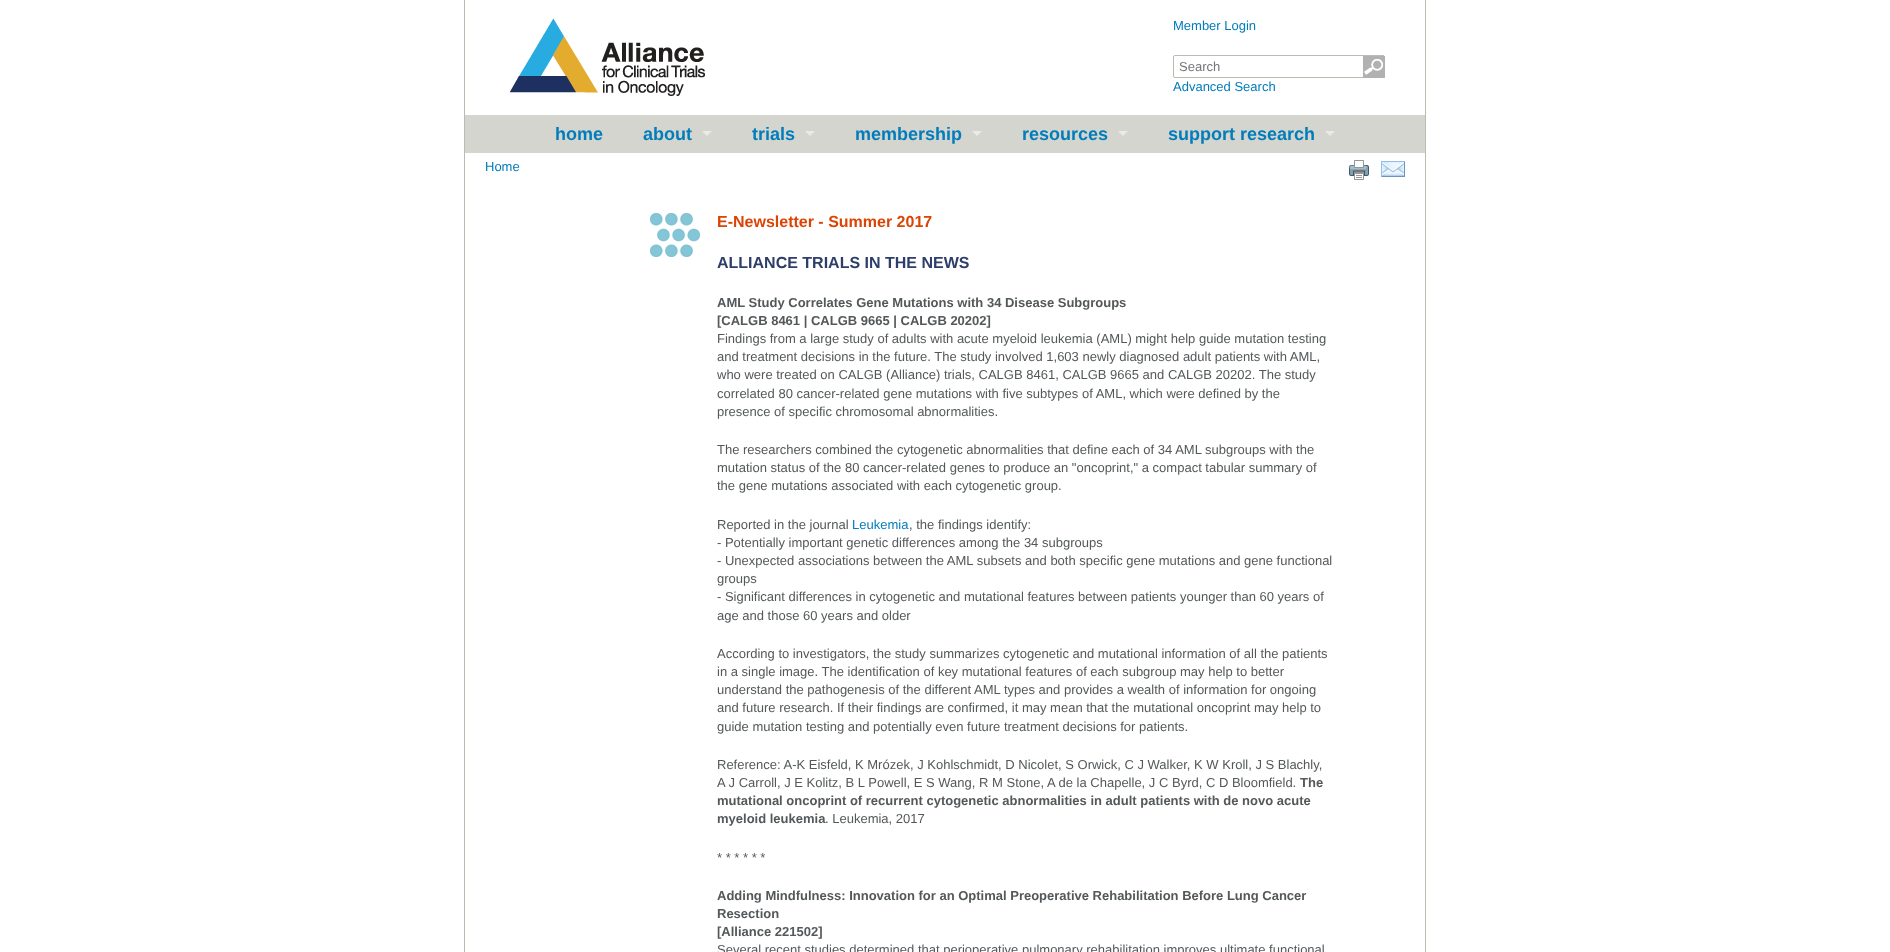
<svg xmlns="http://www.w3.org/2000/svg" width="1890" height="952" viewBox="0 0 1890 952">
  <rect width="100%" height="100%" fill="#fff"/>
  <path d="M1425 0h1v952H1425z" fill="#babbb1"/>
  <path d="M464 0h1v952H464z" fill="#babbb1"/>
  <image x="509" y="18" width="196" height="78" href="img/1.png"/>
  <rect x="1173.5" y="55.5" width="211" height="22" rx="1.5" fill="none" stroke="#babbb1"/>
  <image x="1363" y="56" width="22" height="22" href="img/2.png"/>
  <path d="M465 115h960v38H465z" fill="#d5d5d0"/>
  <path d="M702 131H712L707 136Z" fill="#eaeae8"/>
  <path d="M805 131H815L810 136Z" fill="#eaeae8"/>
  <path d="M972 131H982L977 136Z" fill="#eaeae8"/>
  <path d="M1118 131H1128L1123 136Z" fill="#eaeae8"/>
  <path d="M1325 131H1335L1330 136Z" fill="#eaeae8"/>
  <image x="650" y="213" width="50" height="44" href="img/3.png"/>
  <image x="1349" y="160" width="20" height="20" href="img/4.png"/>
  <image x="1381" y="161" width="24" height="16" href="img/5.png"/>
  <text x="1173" y="30" font-family="Liberation Sans" font-size="13" fill="#007dba">Member Login</text>
  <text x="1179" y="71" font-family="Liberation Sans" font-size="13" fill="#757575">Search</text>
  <text x="1173" y="91" font-family="Liberation Sans" font-size="13" fill="#007dba">Advanced Search</text>
  <g font-family="Liberation Sans" font-size="18" font-weight="bold" fill="#007dba">
    <text x="555" y="140">home</text>
    <text x="643" y="140">about</text>
    <text x="752" y="140">trials</text>
    <text x="855" y="140">membership</text>
    <text x="1022" y="140">resources</text>
    <text x="1168" y="140">support research</text>
  </g>
  <text x="485" y="171" font-family="Liberation Sans" font-size="13" fill="#007dba">Home</text>
  <text x="717" y="227" font-family="Liberation Sans" font-size="16" font-weight="bold" fill="#dc4405">E-Newsletter - Summer 2017</text>
  <text x="717" y="268" font-family="Liberation Sans" font-size="16" font-weight="bold" fill="#2d3e6a">ALLIANCE TRIALS IN THE NEWS</text>
  <g font-family="Liberation Sans" font-size="13" font-weight="bold" fill="#54585a">
    <text x="717" y="307">AML Study Correlates Gene Mutations with 34 Disease Subgroups</text>
    <text x="717" y="325">[CALGB 8461 | CALGB 9665 | CALGB 20202]</text>
  </g>
  <g font-family="Liberation Sans" font-size="13" fill="#54585a">
    <text x="717" y="343">Findings from a large study of adults with acute myeloid leukemia (AML) might help guide mutation testing</text>
    <text x="717" y="361">and treatment decisions in the future. The study involved 1,603 newly diagnosed adult patients with AML,</text>
    <text x="717" y="379">who were treated on CALGB (Alliance) trials, CALGB 8461, CALGB 9665 and CALGB 20202. The study</text>
    <text x="717" y="398">correlated 80 cancer-related gene mutations with five subtypes of AML, which were defined by the</text>
    <text x="717" y="416">presence of specific chromosomal abnormalities.</text>
    <text x="717" y="454">The researchers combined the cytogenetic abnormalities that define each of 34 AML subgroups with the</text>
    <text x="717" y="472">mutation status of the 80 cancer-related genes to produce an "oncoprint," a compact tabular summary of</text>
    <text x="717" y="490">the gene mutations associated with each cytogenetic group.</text>
    <text x="717" y="529">Reported in the journal</text>
  </g>
  <text x="852" y="529" font-family="Liberation Sans" font-size="13" fill="#007dba">Leukemia</text>
  <g font-family="Liberation Sans" font-size="13" fill="#54585a">
    <text x="909" y="529">, the findings identify:</text>
    <text x="717" y="547">- Potentially important genetic differences among the 34 subgroups</text>
    <text x="717" y="565">- Unexpected associations between the AML subsets and both specific gene mutations and gene functional</text>
    <text x="717" y="583">groups</text>
    <text x="717" y="601">- Significant differences in cytogenetic and mutational features between patients younger than 60 years of</text>
    <text x="717" y="620">age and those 60 years and older</text>
    <text x="717" y="658">According to investigators, the study summarizes cytogenetic and mutational information of all the patients</text>
    <text x="717" y="676">in a single image. The identification of key mutational features of each subgroup may help to better</text>
    <text x="717" y="694">understand the pathogenesis of the different AML types and provides a wealth of information for ongoing</text>
    <text x="717" y="712">and future research. If their findings are confirmed, it may mean that the mutational oncoprint may help to</text>
    <text x="717" y="731">guide mutation testing and potentially even future treatment decisions for patients.</text>
    <text x="717" y="769">Reference: A-K Eisfeld, K Mrózek, J Kohlschmidt, D Nicolet, S Orwick, C J Walker, K W Kroll, J S Blachly,</text>
    <text x="717" y="787">A J Carroll, J E Kolitz, B L Powell, E S Wang, R M Stone, A de la Chapelle, J C Byrd, C D Bloomfield.</text>
  </g>
  <g font-family="Liberation Sans" font-size="13" font-weight="bold" fill="#54585a">
    <text x="1300" y="787">The</text>
    <text x="717" y="805">mutational oncoprint of recurrent cytogenetic abnormalities in adult patients with de novo acute</text>
    <text x="717" y="823">myeloid leukemia</text>
  </g>
  <g font-family="Liberation Sans" font-size="13" fill="#54585a">
    <text x="825" y="823">. Leukemia, 2017</text>
    <text x="717" y="862">* * * * * *</text>
  </g>
  <g font-family="Liberation Sans" font-size="13" font-weight="bold" fill="#54585a">
    <text x="717" y="900">Adding Mindfulness: Innovation for an Optimal Preoperative Rehabilitation Before Lung Cancer</text>
    <text x="717" y="918">Resection</text>
    <text x="717" y="936">[Alliance 221502]</text>
  </g>
  <text x="717" y="954" font-family="Liberation Sans" font-size="13" fill="#54585a">Several recent studies determined that perioperative pulmonary rehabilitation improves ultimate functional</text>
</svg>
